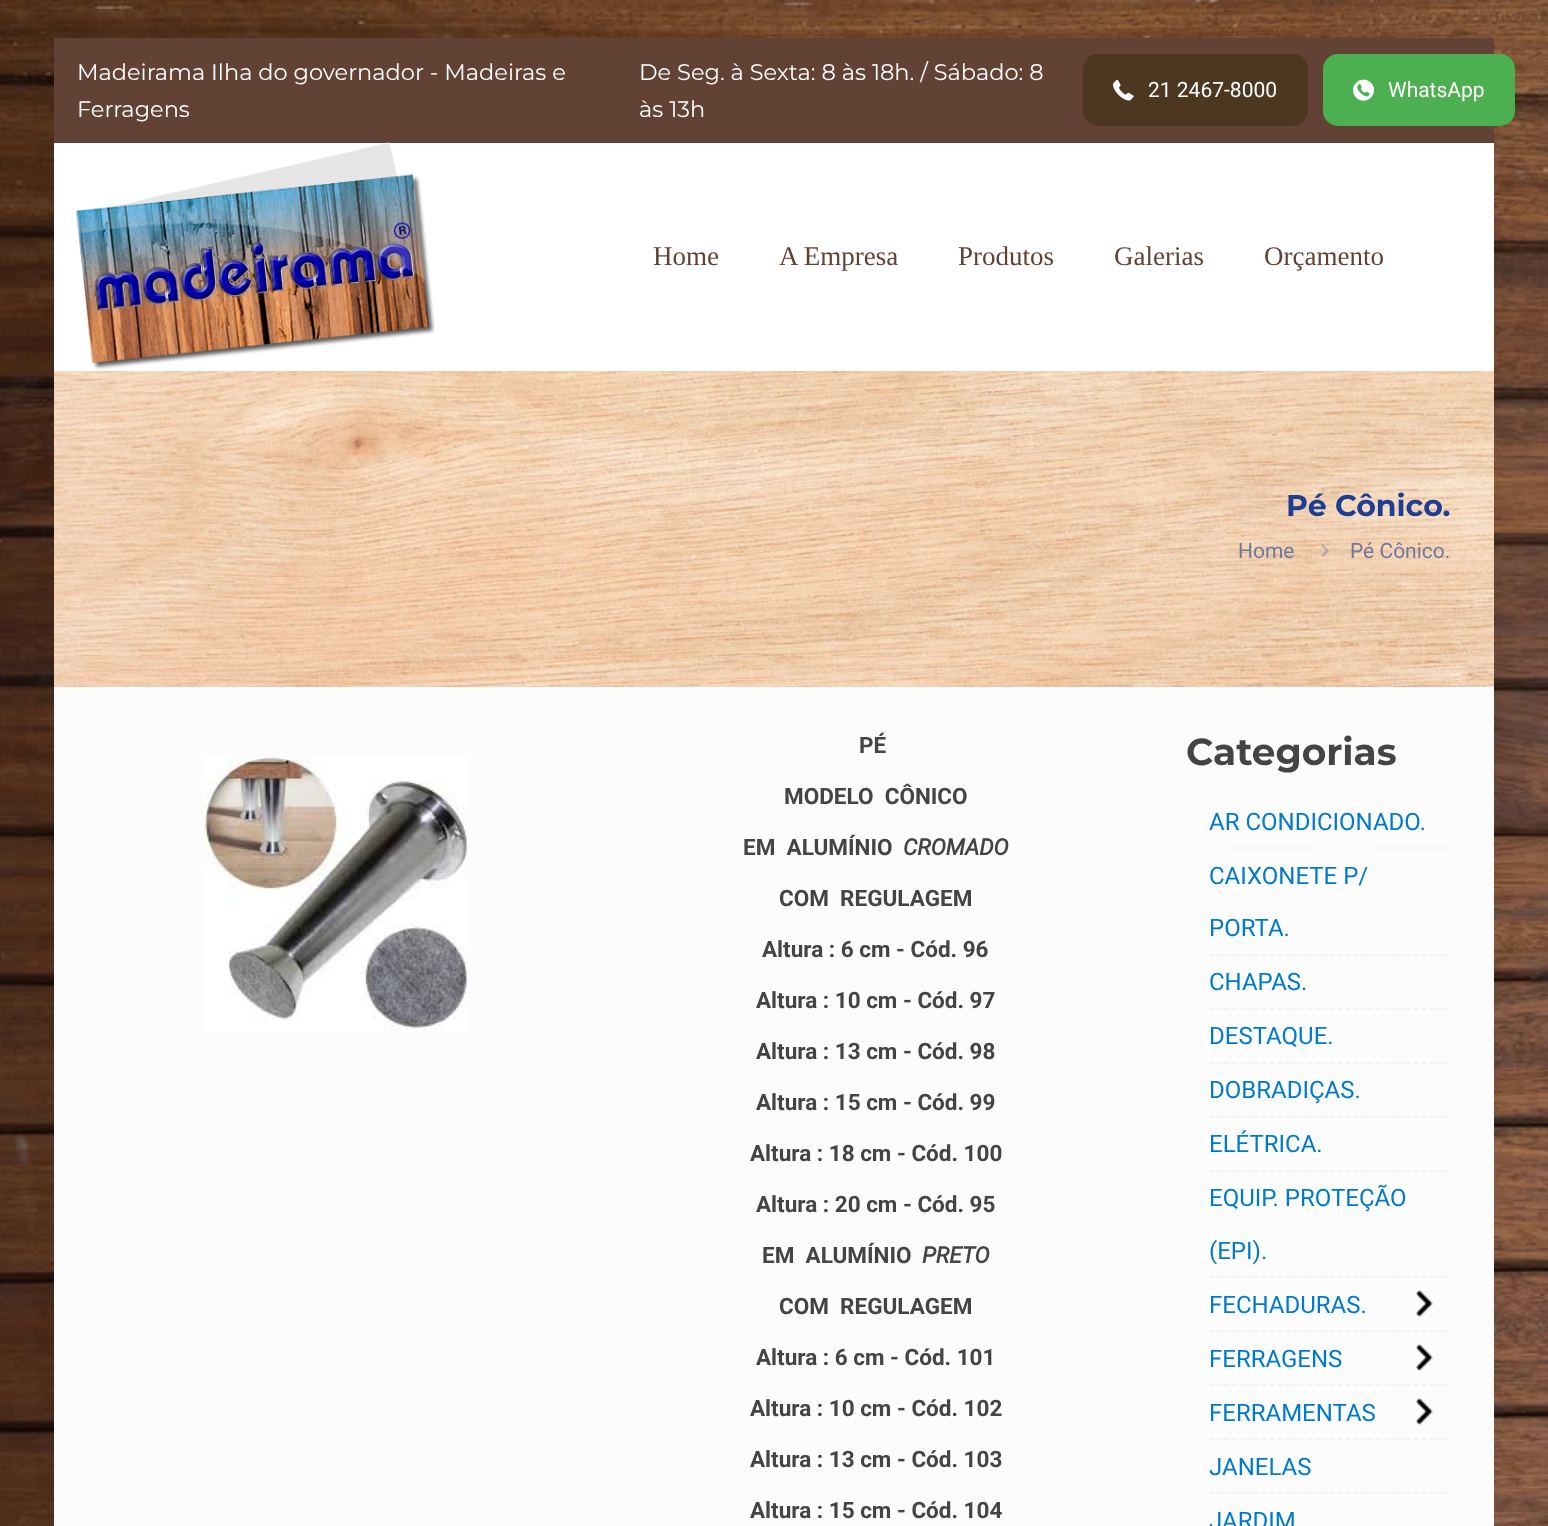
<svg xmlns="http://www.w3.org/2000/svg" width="1548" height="1526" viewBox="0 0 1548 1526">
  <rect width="100%" height="100%" fill="#fff"/>
  <image x="0" y="0" width="1548" height="1526" href="img/1.png"/>
  <path d="M54 38h1440v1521H54z" fill="#0000000f" filter="blur(11px)"/>
  <path d="M54 687h1440v839H54z" fill="#fcfcfc"/>
  <path d="M54 38h1440v105H54z" fill="#624234"/>
  <rect x="1083" y="54" width="225" height="72" rx="15" fill="#4d3720"/>
  <image x="1113" y="79" width="21" height="22" href="img/2.png"/>
  <rect x="1323" y="54" width="192" height="72" rx="15" fill="#4caf50"/>
  <image x="1353" y="79" width="21" height="22" href="img/3.png"/>
  <path d="M54 143h1440v228H54z" fill="#fff"/>
  <image x="76" y="142" width="359" height="228" href="img/4.png"/>
  <image x="54" y="371" width="1440" height="316" href="img/5.png"/>
  <image x="1321" y="544" width="8" height="13" href="img/6.png"/>
  <image x="204" y="756" width="264" height="276" href="img/7.png"/>
  <path d="M1209 848H1449" fill="none" stroke="#f0f0f0" stroke-width="1.5" stroke-dasharray="4.5 3.09"/>
  <path d="M1209 955H1449" fill="none" stroke="#f0f0f0" stroke-width="1.5" stroke-dasharray="4.5 3.09"/>
  <path d="M1209 1009H1449" fill="none" stroke="#f0f0f0" stroke-width="1.5" stroke-dasharray="4.5 3.09"/>
  <path d="M1209 1063H1449" fill="none" stroke="#f0f0f0" stroke-width="1.5" stroke-dasharray="4.5 3.09"/>
  <path d="M1209 1117H1449" fill="none" stroke="#f0f0f0" stroke-width="1.5" stroke-dasharray="4.5 3.09"/>
  <path d="M1209 1171H1449" fill="none" stroke="#f0f0f0" stroke-width="1.5" stroke-dasharray="4.5 3.09"/>
  <path d="M1209 1277H1449" fill="none" stroke="#f0f0f0" stroke-width="1.5" stroke-dasharray="4.5 3.09"/>
  <path d="M1209 1331H1449" fill="none" stroke="#f0f0f0" stroke-width="1.5" stroke-dasharray="4.5 3.09"/>
  <image x="1415" y="1290" width="18" height="27" href="img/8.png"/>
  <path d="M1209 1385H1449" fill="none" stroke="#f0f0f0" stroke-width="1.5" stroke-dasharray="4.5 3.09"/>
  <image x="1415" y="1344" width="18" height="27" href="img/8.png"/>
  <path d="M1209 1439H1449" fill="none" stroke="#f0f0f0" stroke-width="1.5" stroke-dasharray="4.5 3.09"/>
  <image x="1415" y="1398" width="18" height="27" href="img/8.png"/>
  <path d="M1209 1493H1449" fill="none" stroke="#f0f0f0" stroke-width="1.5" stroke-dasharray="4.5 3.09"/>
  <g font-family="Montserrat" font-size="22.5" fill="#fff">
    <text x="77" y="80">Madeirama Ilha do governador - Madeiras e</text>
    <text x="77" y="117">Ferragens</text>
    <text x="639" y="80">De Seg. à Sexta: 8 às 18h. / Sábado: 8</text>
    <text x="639" y="117">às 13h</text>
  </g>
  <g font-family="Roboto" font-size="21" fill="#fff">
    <text x="1148" y="97">21 2467-8000</text>
    <text x="1388" y="97">WhatsApp</text>
  </g>
  <g font-family="Liberation Serif" font-size="27" fill="#624234">
    <text x="653" y="265">Home</text>
    <text x="779" y="265">A Empresa</text>
    <text x="958" y="265">Produtos</text>
    <text x="1114" y="265">Galerias</text>
    <text x="1264" y="265">Orçamento</text>
  </g>
  <text x="1286" y="516" font-family="Montserrat" font-size="30" font-weight="bold" fill="#1d3e93">Pé Cônico.</text>
  <g font-family="Roboto" font-size="21" fill="#71789e">
    <text x="1238" y="558">Home</text>
    <text x="1350" y="558">Pé Cônico.</text>
  </g>
  <g font-family="Roboto" font-size="22.5" font-weight="bold" fill="#444">
    <text x="859" y="753">PÉ</text>
    <text x="784" y="804" xml:space="preserve">MODELO  CÔNICO</text>
    <text x="743" y="855" xml:space="preserve">EM  ALUMÍNIO</text>
  </g>
  <text x="903" y="855" font-family="Roboto" font-size="22.5" font-weight="bold" font-style="italic" fill="#444">CROMADO</text>
  <g font-family="Roboto" font-size="22.5" font-weight="bold" fill="#444">
    <text x="779" y="906" xml:space="preserve">COM  REGULAGEM</text>
    <text x="762" y="957">Altura : 6 cm - Cód. 96</text>
    <text x="756" y="1008">Altura : 10 cm - Cód. 97</text>
    <text x="756" y="1059">Altura : 13 cm - Cód. 98</text>
    <text x="756" y="1110">Altura : 15 cm - Cód. 99</text>
    <text x="750" y="1161">Altura : 18 cm - Cód. 100</text>
    <text x="756" y="1212">Altura : 20 cm - Cód. 95</text>
    <text x="762" y="1263" xml:space="preserve">EM  ALUMÍNIO</text>
  </g>
  <text x="922" y="1263" font-family="Roboto" font-size="22.5" font-weight="bold" font-style="italic" fill="#444">PRETO</text>
  <g font-family="Roboto" font-size="22.5" font-weight="bold" fill="#444">
    <text x="779" y="1314" xml:space="preserve">COM  REGULAGEM</text>
    <text x="756" y="1365">Altura : 6 cm - Cód. 101</text>
    <text x="750" y="1416">Altura : 10 cm - Cód. 102</text>
    <text x="750" y="1467">Altura : 13 cm - Cód. 103</text>
    <text x="750" y="1518">Altura : 15 cm - Cód. 104</text>
  </g>
  <text x="1186" y="765" font-family="Montserrat" font-size="37.5" font-weight="bold" fill="#444">Categorias</text>
  <g font-family="Roboto" font-size="24" fill="#007acc">
    <text x="1209" y="830">AR CONDICIONADO.</text>
    <text x="1209" y="884">CAIXONETE P/</text>
    <text x="1209" y="936">PORTA.</text>
    <text x="1209" y="990">CHAPAS.</text>
    <text x="1209" y="1044">DESTAQUE.</text>
    <text x="1209" y="1098">DOBRADIÇAS.</text>
    <text x="1209" y="1152">ELÉTRICA.</text>
    <text x="1209" y="1206">EQUIP. PROTEÇÃO</text>
    <text x="1209" y="1259">(EPI).</text>
    <text x="1209" y="1313">FECHADURAS.</text>
    <text x="1209" y="1367">FERRAGENS</text>
    <text x="1209" y="1421">FERRAMENTAS</text>
    <text x="1209" y="1475">JANELAS</text>
    <text x="1209" y="1529">JARDIM</text>
  </g>
</svg>
